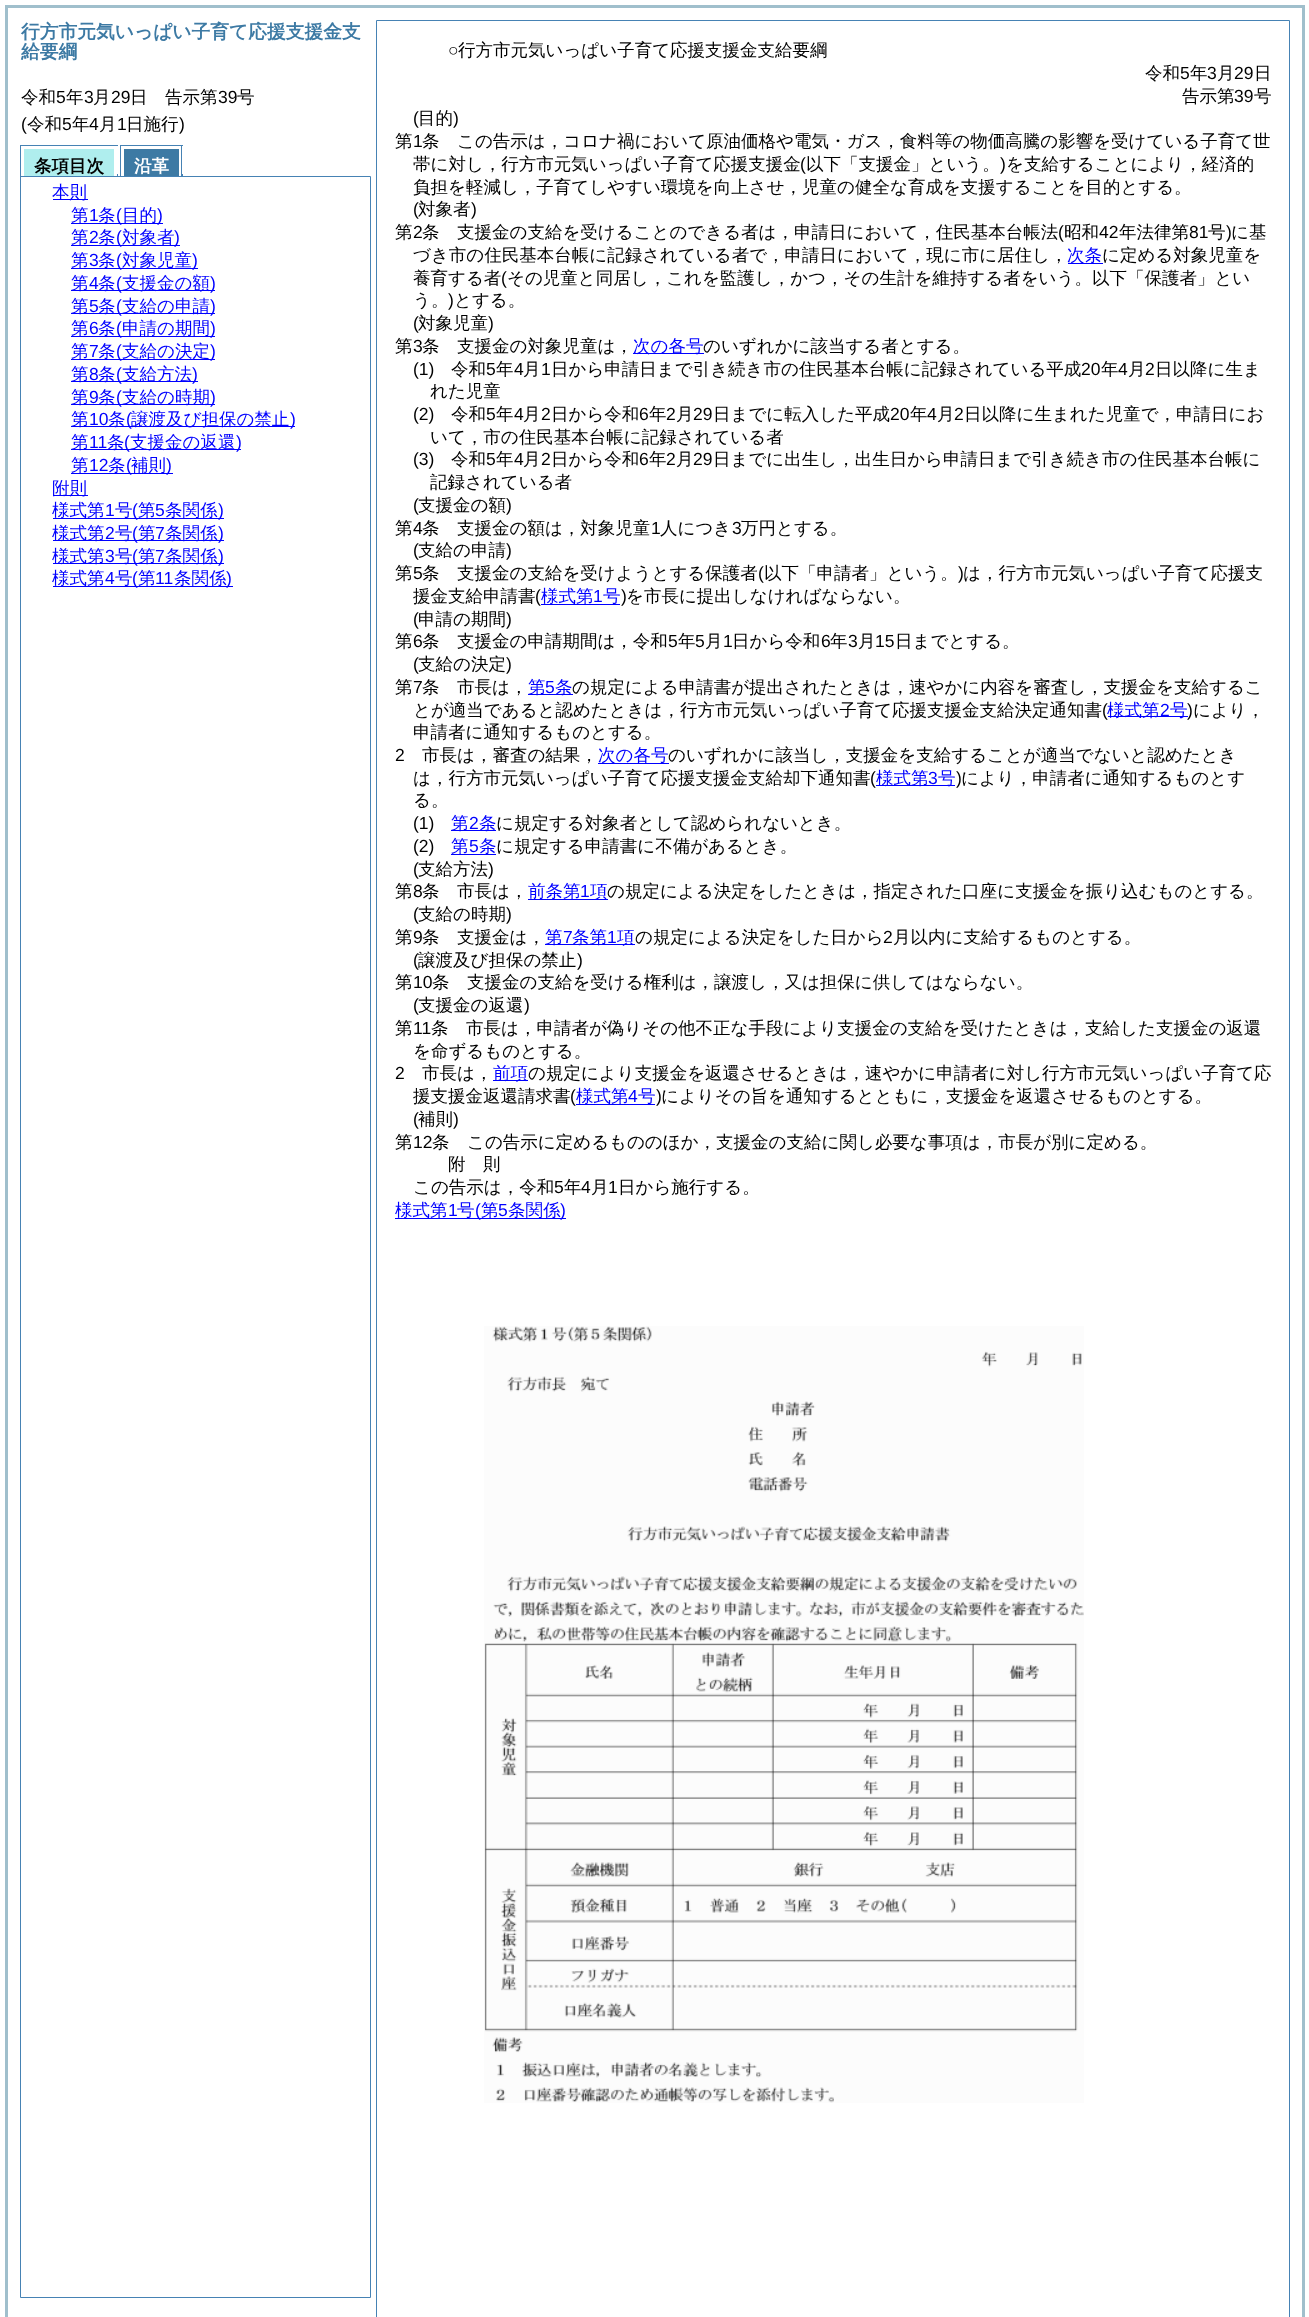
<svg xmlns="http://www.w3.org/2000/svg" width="1309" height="2317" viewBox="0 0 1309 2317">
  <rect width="100%" height="100%" fill="#fff"/>
  <path d="M6.5 6.5h1297v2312H6.5z" fill="none" stroke="#a0bfcc" stroke-width="3"/>
  <path d="M20 145h98v1H20z" fill="#4682b4"/>
  <path d="M117 174h1v2H117z" fill="#4682b4"/>
  <path d="M20 145h1v33H20z" fill="#4682b4"/>
  <path d="M24 149h90v27H24z" fill="#afeeee"/>
  <path d="M120 145h63v1H120z" fill="#4682b4"/>
  <path d="M181 145h1v33H181z" fill="#4682b4"/>
  <path d="M181 174h2v2H181z" fill="#4682b4"/>
  <path d="M120 145h1v33H120z" fill="#4682b4"/>
  <path d="M124 149h55v27H124z" fill="#3d7aa4"/>
  <path d="M120 177h62v1H120z" fill="#fff"/>
  <path d="M20.5 176.5h350v2121H20.5z" fill="none" stroke="#4682b4"/>
  <path d="M53 199h35v1H53z" fill="#00f"/>
  <path d="M71 223h92v1H71z" fill="#00f"/>
  <path d="M71 245h109v1H71z" fill="#00f"/>
  <path d="M71 268h127v1H71z" fill="#00f"/>
  <path d="M71 290h144v1H71z" fill="#00f"/>
  <path d="M71 313h144v1H71z" fill="#00f"/>
  <path d="M71 336h144v1H71z" fill="#00f"/>
  <path d="M71 359h144v1H71z" fill="#00f"/>
  <path d="M71 381h127v1H71z" fill="#00f"/>
  <path d="M71 404h144v1H71z" fill="#00f"/>
  <path d="M71 426h224v1H71z" fill="#00f"/>
  <path d="M71 449h170v1H71z" fill="#00f"/>
  <path d="M71 473h102v1H71z" fill="#00f"/>
  <path d="M53 495h35v1H53z" fill="#00f"/>
  <path d="M53 518h171v1H53z" fill="#00f"/>
  <path d="M53 540h171v1H53z" fill="#00f"/>
  <path d="M53 563h171v1H53z" fill="#00f"/>
  <path d="M53 586h180v1H53z" fill="#00f"/>
  <path d="M376.5 20.5h913v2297H376.5z" fill="none" stroke="#4682b4"/>
  <path d="M1068 263h35v1H1068z" fill="#00f"/>
  <path d="M633 353h71v1H633z" fill="#00f"/>
  <path d="M541 604h79v1H541z" fill="#00f"/>
  <path d="M528 694h45v1H528z" fill="#00f"/>
  <path d="M1108 716h80v1H1108z" fill="#00f"/>
  <path d="M598 763h71v1H598z" fill="#00f"/>
  <path d="M876 785h79v1H876z" fill="#00f"/>
  <path d="M451 830h45v1H451z" fill="#00f"/>
  <path d="M451 854h45v1H451z" fill="#00f"/>
  <path d="M528 899h80v1H528z" fill="#00f"/>
  <path d="M545 944h90v1H545z" fill="#00f"/>
  <path d="M493 1080h35v1H493z" fill="#00f"/>
  <path d="M576 1104h79v1H576z" fill="#00f"/>
  <path d="M395 1218h171v1H395z" fill="#00f"/>
  <image x="484" y="1326" width="600" height="777" href="img/1.png"/>
  <g font-family="WenQuanYi Zen Hei" font-size="18.75" font-weight="bold" fill="#3d7aa4">
    <text x="21" y="38">行方市元気いっぱい子育て応援支援金支</text>
    <text x="21" y="58">給要綱</text>
  </g>
  <text x="21" y="103" font-family="WenQuanYi Zen Hei" font-size="17.5" font-weight="500" fill="#000">令和</text>
  <text x="56" y="103" font-family="Liberation Sans" font-size="17.5" fill="#000">5</text>
  <text x="66" y="103" font-family="WenQuanYi Zen Hei" font-size="17.5" font-weight="500" fill="#000">年</text>
  <text x="84" y="103" font-family="Liberation Sans" font-size="17.5" fill="#000">3</text>
  <text x="93" y="103" font-family="WenQuanYi Zen Hei" font-size="17.5" font-weight="500" fill="#000">月</text>
  <text x="111" y="103" font-family="Liberation Sans" font-size="17.5" fill="#000">29</text>
  <text x="130" y="103" font-family="WenQuanYi Zen Hei" font-size="17.5" font-weight="500" fill="#000">日　告示第</text>
  <text x="218" y="103" font-family="Liberation Sans" font-size="17.5" fill="#000">39</text>
  <text x="237" y="103" font-family="WenQuanYi Zen Hei" font-size="17.5" font-weight="500" fill="#000">号</text>
  <text x="21" y="130" font-family="Liberation Sans" font-size="17.5" fill="#000">(</text>
  <text x="27" y="130" font-family="WenQuanYi Zen Hei" font-size="17.5" font-weight="500" fill="#000">令和</text>
  <text x="62" y="130" font-family="Liberation Sans" font-size="17.5" fill="#000">5</text>
  <text x="72" y="130" font-family="WenQuanYi Zen Hei" font-size="17.5" font-weight="500" fill="#000">年</text>
  <text x="89" y="130" font-family="Liberation Sans" font-size="17.5" fill="#000">4</text>
  <text x="99" y="130" font-family="WenQuanYi Zen Hei" font-size="17.5" font-weight="500" fill="#000">月</text>
  <text x="117" y="130" font-family="Liberation Sans" font-size="17.5" fill="#000">1</text>
  <text x="126" y="130" font-family="WenQuanYi Zen Hei" font-size="17.5" font-weight="500" fill="#000">日施行</text>
  <text x="179" y="130" font-family="Liberation Sans" font-size="17.5" fill="#000">)</text>
  <text x="34" y="172" font-family="WenQuanYi Zen Hei" font-size="17.5" font-weight="bold" fill="#000">条項目次</text>
  <text x="134" y="172" font-family="WenQuanYi Zen Hei" font-size="17.5" font-weight="bold" fill="#fff">沿革</text>
  <g font-family="WenQuanYi Zen Hei" font-size="17.5" font-weight="500" fill="#00f">
    <text x="52" y="198">本則</text>
    <text x="71" y="221">第</text>
  </g>
  <text x="89" y="221" font-family="Liberation Sans" font-size="17.5" fill="#00f">1</text>
  <text x="98" y="221" font-family="WenQuanYi Zen Hei" font-size="17.5" font-weight="500" fill="#00f">条</text>
  <text x="116" y="221" font-family="Liberation Sans" font-size="17.5" fill="#00f">(</text>
  <text x="122" y="221" font-family="WenQuanYi Zen Hei" font-size="17.5" font-weight="500" fill="#00f">目的</text>
  <text x="157" y="221" font-family="Liberation Sans" font-size="17.5" fill="#00f">)</text>
  <text x="71" y="243" font-family="WenQuanYi Zen Hei" font-size="17.5" font-weight="500" fill="#00f">第</text>
  <text x="89" y="243" font-family="Liberation Sans" font-size="17.5" fill="#00f">2</text>
  <text x="98" y="243" font-family="WenQuanYi Zen Hei" font-size="17.5" font-weight="500" fill="#00f">条</text>
  <text x="116" y="243" font-family="Liberation Sans" font-size="17.5" fill="#00f">(</text>
  <text x="122" y="243" font-family="WenQuanYi Zen Hei" font-size="17.5" font-weight="500" fill="#00f">対象者</text>
  <text x="174" y="243" font-family="Liberation Sans" font-size="17.5" fill="#00f">)</text>
  <text x="71" y="266" font-family="WenQuanYi Zen Hei" font-size="17.5" font-weight="500" fill="#00f">第</text>
  <text x="89" y="266" font-family="Liberation Sans" font-size="17.5" fill="#00f">3</text>
  <text x="98" y="266" font-family="WenQuanYi Zen Hei" font-size="17.5" font-weight="500" fill="#00f">条</text>
  <text x="116" y="266" font-family="Liberation Sans" font-size="17.5" fill="#00f">(</text>
  <text x="122" y="266" font-family="WenQuanYi Zen Hei" font-size="17.5" font-weight="500" fill="#00f">対象児童</text>
  <text x="192" y="266" font-family="Liberation Sans" font-size="17.5" fill="#00f">)</text>
  <text x="71" y="289" font-family="WenQuanYi Zen Hei" font-size="17.5" font-weight="500" fill="#00f">第</text>
  <text x="89" y="289" font-family="Liberation Sans" font-size="17.5" fill="#00f">4</text>
  <text x="98" y="289" font-family="WenQuanYi Zen Hei" font-size="17.5" font-weight="500" fill="#00f">条</text>
  <text x="116" y="289" font-family="Liberation Sans" font-size="17.5" fill="#00f">(</text>
  <text x="122" y="289" font-family="WenQuanYi Zen Hei" font-size="17.5" font-weight="500" fill="#00f">支援金の額</text>
  <text x="210" y="289" font-family="Liberation Sans" font-size="17.5" fill="#00f">)</text>
  <text x="71" y="312" font-family="WenQuanYi Zen Hei" font-size="17.5" font-weight="500" fill="#00f">第</text>
  <text x="89" y="312" font-family="Liberation Sans" font-size="17.5" fill="#00f">5</text>
  <text x="98" y="312" font-family="WenQuanYi Zen Hei" font-size="17.5" font-weight="500" fill="#00f">条</text>
  <text x="116" y="312" font-family="Liberation Sans" font-size="17.5" fill="#00f">(</text>
  <text x="122" y="312" font-family="WenQuanYi Zen Hei" font-size="17.5" font-weight="500" fill="#00f">支給の申請</text>
  <text x="210" y="312" font-family="Liberation Sans" font-size="17.5" fill="#00f">)</text>
  <text x="71" y="334" font-family="WenQuanYi Zen Hei" font-size="17.5" font-weight="500" fill="#00f">第</text>
  <text x="89" y="334" font-family="Liberation Sans" font-size="17.5" fill="#00f">6</text>
  <text x="98" y="334" font-family="WenQuanYi Zen Hei" font-size="17.5" font-weight="500" fill="#00f">条</text>
  <text x="116" y="334" font-family="Liberation Sans" font-size="17.5" fill="#00f">(</text>
  <text x="122" y="334" font-family="WenQuanYi Zen Hei" font-size="17.5" font-weight="500" fill="#00f">申請の期間</text>
  <text x="210" y="334" font-family="Liberation Sans" font-size="17.5" fill="#00f">)</text>
  <text x="71" y="357" font-family="WenQuanYi Zen Hei" font-size="17.5" font-weight="500" fill="#00f">第</text>
  <text x="89" y="357" font-family="Liberation Sans" font-size="17.5" fill="#00f">7</text>
  <text x="98" y="357" font-family="WenQuanYi Zen Hei" font-size="17.5" font-weight="500" fill="#00f">条</text>
  <text x="116" y="357" font-family="Liberation Sans" font-size="17.5" fill="#00f">(</text>
  <text x="122" y="357" font-family="WenQuanYi Zen Hei" font-size="17.5" font-weight="500" fill="#00f">支給の決定</text>
  <text x="210" y="357" font-family="Liberation Sans" font-size="17.5" fill="#00f">)</text>
  <text x="71" y="380" font-family="WenQuanYi Zen Hei" font-size="17.5" font-weight="500" fill="#00f">第</text>
  <text x="89" y="380" font-family="Liberation Sans" font-size="17.5" fill="#00f">8</text>
  <text x="98" y="380" font-family="WenQuanYi Zen Hei" font-size="17.5" font-weight="500" fill="#00f">条</text>
  <text x="116" y="380" font-family="Liberation Sans" font-size="17.5" fill="#00f">(</text>
  <text x="122" y="380" font-family="WenQuanYi Zen Hei" font-size="17.5" font-weight="500" fill="#00f">支給方法</text>
  <text x="192" y="380" font-family="Liberation Sans" font-size="17.5" fill="#00f">)</text>
  <text x="71" y="403" font-family="WenQuanYi Zen Hei" font-size="17.5" font-weight="500" fill="#00f">第</text>
  <text x="89" y="403" font-family="Liberation Sans" font-size="17.5" fill="#00f">9</text>
  <text x="98" y="403" font-family="WenQuanYi Zen Hei" font-size="17.5" font-weight="500" fill="#00f">条</text>
  <text x="116" y="403" font-family="Liberation Sans" font-size="17.5" fill="#00f">(</text>
  <text x="122" y="403" font-family="WenQuanYi Zen Hei" font-size="17.5" font-weight="500" fill="#00f">支給の時期</text>
  <text x="210" y="403" font-family="Liberation Sans" font-size="17.5" fill="#00f">)</text>
  <text x="71" y="425" font-family="WenQuanYi Zen Hei" font-size="17.5" font-weight="500" fill="#00f">第</text>
  <text x="89" y="425" font-family="Liberation Sans" font-size="17.5" fill="#00f">10</text>
  <text x="108" y="425" font-family="WenQuanYi Zen Hei" font-size="17.5" font-weight="500" fill="#00f">条</text>
  <text x="126" y="425" font-family="Liberation Sans" font-size="17.5" fill="#00f">(</text>
  <text x="131" y="425" font-family="WenQuanYi Zen Hei" font-size="17.5" font-weight="500" fill="#00f">譲渡及び担保の禁止</text>
  <text x="290" y="425" font-family="Liberation Sans" font-size="17.5" fill="#00f">)</text>
  <text x="71" y="448" font-family="WenQuanYi Zen Hei" font-size="17.5" font-weight="500" fill="#00f">第</text>
  <text x="89" y="448" font-family="Liberation Sans" font-size="17.5" fill="#00f">11</text>
  <text x="107" y="448" font-family="WenQuanYi Zen Hei" font-size="17.5" font-weight="500" fill="#00f">条</text>
  <text x="124" y="448" font-family="Liberation Sans" font-size="17.5" fill="#00f">(</text>
  <text x="130" y="448" font-family="WenQuanYi Zen Hei" font-size="17.5" font-weight="500" fill="#00f">支援金の返還</text>
  <text x="236" y="448" font-family="Liberation Sans" font-size="17.5" fill="#00f">)</text>
  <text x="71" y="471" font-family="WenQuanYi Zen Hei" font-size="17.5" font-weight="500" fill="#00f">第</text>
  <text x="89" y="471" font-family="Liberation Sans" font-size="17.5" fill="#00f">12</text>
  <text x="108" y="471" font-family="WenQuanYi Zen Hei" font-size="17.5" font-weight="500" fill="#00f">条</text>
  <text x="126" y="471" font-family="Liberation Sans" font-size="17.5" fill="#00f">(</text>
  <text x="131" y="471" font-family="WenQuanYi Zen Hei" font-size="17.5" font-weight="500" fill="#00f">補則</text>
  <text x="166" y="471" font-family="Liberation Sans" font-size="17.5" fill="#00f">)</text>
  <g font-family="WenQuanYi Zen Hei" font-size="17.5" font-weight="500" fill="#00f">
    <text x="52" y="494">附則</text>
    <text x="52" y="516">様式第</text>
  </g>
  <text x="105" y="516" font-family="Liberation Sans" font-size="17.5" fill="#00f">1</text>
  <text x="115" y="516" font-family="WenQuanYi Zen Hei" font-size="17.5" font-weight="500" fill="#00f">号</text>
  <text x="132" y="516" font-family="Liberation Sans" font-size="17.5" fill="#00f">(</text>
  <text x="138" y="516" font-family="WenQuanYi Zen Hei" font-size="17.5" font-weight="500" fill="#00f">第</text>
  <text x="155" y="516" font-family="Liberation Sans" font-size="17.5" fill="#00f">5</text>
  <text x="165" y="516" font-family="WenQuanYi Zen Hei" font-size="17.5" font-weight="500" fill="#00f">条関係</text>
  <text x="218" y="516" font-family="Liberation Sans" font-size="17.5" fill="#00f">)</text>
  <text x="52" y="539" font-family="WenQuanYi Zen Hei" font-size="17.5" font-weight="500" fill="#00f">様式第</text>
  <text x="105" y="539" font-family="Liberation Sans" font-size="17.5" fill="#00f">2</text>
  <text x="115" y="539" font-family="WenQuanYi Zen Hei" font-size="17.5" font-weight="500" fill="#00f">号</text>
  <text x="132" y="539" font-family="Liberation Sans" font-size="17.5" fill="#00f">(</text>
  <text x="138" y="539" font-family="WenQuanYi Zen Hei" font-size="17.5" font-weight="500" fill="#00f">第</text>
  <text x="155" y="539" font-family="Liberation Sans" font-size="17.5" fill="#00f">7</text>
  <text x="165" y="539" font-family="WenQuanYi Zen Hei" font-size="17.5" font-weight="500" fill="#00f">条関係</text>
  <text x="218" y="539" font-family="Liberation Sans" font-size="17.5" fill="#00f">)</text>
  <text x="52" y="562" font-family="WenQuanYi Zen Hei" font-size="17.5" font-weight="500" fill="#00f">様式第</text>
  <text x="105" y="562" font-family="Liberation Sans" font-size="17.5" fill="#00f">3</text>
  <text x="115" y="562" font-family="WenQuanYi Zen Hei" font-size="17.5" font-weight="500" fill="#00f">号</text>
  <text x="132" y="562" font-family="Liberation Sans" font-size="17.5" fill="#00f">(</text>
  <text x="138" y="562" font-family="WenQuanYi Zen Hei" font-size="17.5" font-weight="500" fill="#00f">第</text>
  <text x="155" y="562" font-family="Liberation Sans" font-size="17.5" fill="#00f">7</text>
  <text x="165" y="562" font-family="WenQuanYi Zen Hei" font-size="17.5" font-weight="500" fill="#00f">条関係</text>
  <text x="218" y="562" font-family="Liberation Sans" font-size="17.5" fill="#00f">)</text>
  <text x="52" y="584" font-family="WenQuanYi Zen Hei" font-size="17.5" font-weight="500" fill="#00f">様式第</text>
  <text x="105" y="584" font-family="Liberation Sans" font-size="17.5" fill="#00f">4</text>
  <text x="115" y="584" font-family="WenQuanYi Zen Hei" font-size="17.5" font-weight="500" fill="#00f">号</text>
  <text x="132" y="584" font-family="Liberation Sans" font-size="17.5" fill="#00f">(</text>
  <text x="138" y="584" font-family="WenQuanYi Zen Hei" font-size="17.5" font-weight="500" fill="#00f">第</text>
  <text x="155" y="584" font-family="Liberation Sans" font-size="17.5" fill="#00f">11</text>
  <text x="174" y="584" font-family="WenQuanYi Zen Hei" font-size="17.5" font-weight="500" fill="#00f">条関係</text>
  <text x="226" y="584" font-family="Liberation Sans" font-size="17.5" fill="#00f">)</text>
  <text x="448" y="56" font-family="Liberation Sans" font-size="17.5" fill="#000">○</text>
  <g font-family="WenQuanYi Zen Hei" font-size="17.5" font-weight="500" fill="#000">
    <text x="458" y="56">行方市元気いっぱい子育て応援支援金支給要綱</text>
    <text x="1145" y="79">令和</text>
  </g>
  <text x="1180" y="79" font-family="Liberation Sans" font-size="17.5" fill="#000">5</text>
  <text x="1190" y="79" font-family="WenQuanYi Zen Hei" font-size="17.5" font-weight="500" fill="#000">年</text>
  <text x="1207" y="79" font-family="Liberation Sans" font-size="17.5" fill="#000">3</text>
  <text x="1217" y="79" font-family="WenQuanYi Zen Hei" font-size="17.5" font-weight="500" fill="#000">月</text>
  <text x="1234" y="79" font-family="Liberation Sans" font-size="17.5" fill="#000">29</text>
  <g font-family="WenQuanYi Zen Hei" font-size="17.5" font-weight="500" fill="#000">
    <text x="1254" y="79">日</text>
    <text x="1182" y="102">告示第</text>
  </g>
  <text x="1234" y="102" font-family="Liberation Sans" font-size="17.5" fill="#000">39</text>
  <text x="1254" y="102" font-family="WenQuanYi Zen Hei" font-size="17.5" font-weight="500" fill="#000">号</text>
  <text x="413" y="124" font-family="Liberation Sans" font-size="17.5" fill="#000">(</text>
  <text x="418" y="124" font-family="WenQuanYi Zen Hei" font-size="17.5" font-weight="500" fill="#000">目的</text>
  <text x="453" y="124" font-family="Liberation Sans" font-size="17.5" fill="#000">)</text>
  <text x="395" y="147" font-family="WenQuanYi Zen Hei" font-size="17.5" font-weight="500" fill="#000">第</text>
  <text x="413" y="147" font-family="Liberation Sans" font-size="17.5" fill="#000">1</text>
  <g font-family="WenQuanYi Zen Hei" font-size="17.5" font-weight="500" fill="#000">
    <text x="422" y="147">条</text>
    <text x="457" y="147">この告示は，コロナ禍において原油価格や電気・ガス，食料等の物価高騰の影響を受けている子育て世</text>
    <text x="413" y="170">帯に対し，行方市元気いっぱい子育て応援支援金</text>
  </g>
  <text x="800" y="170" font-family="Liberation Sans" font-size="17.5" fill="#000">(</text>
  <text x="806" y="170" font-family="WenQuanYi Zen Hei" font-size="17.5" font-weight="500" fill="#000">以下「支援金」という。</text>
  <text x="1000" y="170" font-family="Liberation Sans" font-size="17.5" fill="#000">)</text>
  <g font-family="WenQuanYi Zen Hei" font-size="17.5" font-weight="500" fill="#000">
    <text x="1006" y="170">を支給することにより，経済的</text>
    <text x="413" y="193">負担を軽減し，子育てしやすい環境を向上させ，児童の健全な育成を支援することを目的とする。</text>
  </g>
  <text x="413" y="215" font-family="Liberation Sans" font-size="17.5" fill="#000">(</text>
  <text x="418" y="215" font-family="WenQuanYi Zen Hei" font-size="17.5" font-weight="500" fill="#000">対象者</text>
  <text x="471" y="215" font-family="Liberation Sans" font-size="17.5" fill="#000">)</text>
  <text x="395" y="238" font-family="WenQuanYi Zen Hei" font-size="17.5" font-weight="500" fill="#000">第</text>
  <text x="413" y="238" font-family="Liberation Sans" font-size="17.5" fill="#000">2</text>
  <g font-family="WenQuanYi Zen Hei" font-size="17.5" font-weight="500" fill="#000">
    <text x="422" y="238">条</text>
    <text x="457" y="238">支援金の支給を受けることのできる者は，申請日において，住民基本台帳法</text>
  </g>
  <text x="1058" y="238" font-family="Liberation Sans" font-size="17.5" fill="#000">(</text>
  <text x="1064" y="238" font-family="WenQuanYi Zen Hei" font-size="17.5" font-weight="500" fill="#000">昭和</text>
  <text x="1099" y="238" font-family="Liberation Sans" font-size="17.5" fill="#000">42</text>
  <text x="1119" y="238" font-family="WenQuanYi Zen Hei" font-size="17.5" font-weight="500" fill="#000">年法律第</text>
  <text x="1189" y="238" font-family="Liberation Sans" font-size="17.5" fill="#000">81</text>
  <text x="1208" y="238" font-family="WenQuanYi Zen Hei" font-size="17.5" font-weight="500" fill="#000">号</text>
  <text x="1226" y="238" font-family="Liberation Sans" font-size="17.5" fill="#000">)</text>
  <g font-family="WenQuanYi Zen Hei" font-size="17.5" font-weight="500" fill="#000">
    <text x="1231" y="238">に基</text>
    <text x="413" y="261">づき市の住民基本台帳に記録されている者で，申請日において，現に市に居住し，</text>
  </g>
  <text x="1067" y="261" font-family="WenQuanYi Zen Hei" font-size="17.5" font-weight="500" fill="#00f">次条</text>
  <g font-family="WenQuanYi Zen Hei" font-size="17.5" font-weight="500" fill="#000">
    <text x="1102" y="261">に定める対象児童を</text>
    <text x="413" y="284">養育する者</text>
  </g>
  <text x="501" y="284" font-family="Liberation Sans" font-size="17.5" fill="#000">(</text>
  <g font-family="WenQuanYi Zen Hei" font-size="17.5" font-weight="500" fill="#000">
    <text x="507" y="284">その児童と同居し，これを監護し，かつ，その生計を維持する者をいう。以下「保護者」とい</text>
    <text x="413" y="306">う。</text>
  </g>
  <text x="448" y="306" font-family="Liberation Sans" font-size="17.5" fill="#000">)</text>
  <text x="454" y="306" font-family="WenQuanYi Zen Hei" font-size="17.5" font-weight="500" fill="#000">とする。</text>
  <text x="413" y="329" font-family="Liberation Sans" font-size="17.5" fill="#000">(</text>
  <text x="418" y="329" font-family="WenQuanYi Zen Hei" font-size="17.5" font-weight="500" fill="#000">対象児童</text>
  <text x="488" y="329" font-family="Liberation Sans" font-size="17.5" fill="#000">)</text>
  <text x="395" y="352" font-family="WenQuanYi Zen Hei" font-size="17.5" font-weight="500" fill="#000">第</text>
  <text x="413" y="352" font-family="Liberation Sans" font-size="17.5" fill="#000">3</text>
  <g font-family="WenQuanYi Zen Hei" font-size="17.5" font-weight="500" fill="#000">
    <text x="422" y="352">条</text>
    <text x="457" y="352">支援金の対象児童は，</text>
  </g>
  <text x="633" y="352" font-family="WenQuanYi Zen Hei" font-size="17.5" font-weight="500" fill="#00f">次の各号</text>
  <text x="703" y="352" font-family="WenQuanYi Zen Hei" font-size="17.5" font-weight="500" fill="#000">のいずれかに該当する者とする。</text>
  <text x="413" y="375" font-family="Liberation Sans" font-size="17.5" fill="#000">(1)</text>
  <text x="451" y="375" font-family="WenQuanYi Zen Hei" font-size="17.5" font-weight="500" fill="#000">令和</text>
  <text x="486" y="375" font-family="Liberation Sans" font-size="17.5" fill="#000">5</text>
  <text x="496" y="375" font-family="WenQuanYi Zen Hei" font-size="17.5" font-weight="500" fill="#000">年</text>
  <text x="514" y="375" font-family="Liberation Sans" font-size="17.5" fill="#000">4</text>
  <text x="523" y="375" font-family="WenQuanYi Zen Hei" font-size="17.5" font-weight="500" fill="#000">月</text>
  <text x="541" y="375" font-family="Liberation Sans" font-size="17.5" fill="#000">1</text>
  <text x="551" y="375" font-family="WenQuanYi Zen Hei" font-size="17.5" font-weight="500" fill="#000">日から申請日まで引き続き市の住民基本台帳に記録されている平成</text>
  <text x="1081" y="375" font-family="Liberation Sans" font-size="17.5" fill="#000">20</text>
  <text x="1101" y="375" font-family="WenQuanYi Zen Hei" font-size="17.5" font-weight="500" fill="#000">年</text>
  <text x="1118" y="375" font-family="Liberation Sans" font-size="17.5" fill="#000">4</text>
  <text x="1128" y="375" font-family="WenQuanYi Zen Hei" font-size="17.5" font-weight="500" fill="#000">月</text>
  <text x="1145" y="375" font-family="Liberation Sans" font-size="17.5" fill="#000">2</text>
  <g font-family="WenQuanYi Zen Hei" font-size="17.5" font-weight="500" fill="#000">
    <text x="1155" y="375">日以降に生ま</text>
    <text x="430" y="397">れた児童</text>
  </g>
  <text x="413" y="420" font-family="Liberation Sans" font-size="17.5" fill="#000">(2)</text>
  <text x="451" y="420" font-family="WenQuanYi Zen Hei" font-size="17.5" font-weight="500" fill="#000">令和</text>
  <text x="486" y="420" font-family="Liberation Sans" font-size="17.5" fill="#000">5</text>
  <text x="496" y="420" font-family="WenQuanYi Zen Hei" font-size="17.5" font-weight="500" fill="#000">年</text>
  <text x="514" y="420" font-family="Liberation Sans" font-size="17.5" fill="#000">4</text>
  <text x="523" y="420" font-family="WenQuanYi Zen Hei" font-size="17.5" font-weight="500" fill="#000">月</text>
  <text x="541" y="420" font-family="Liberation Sans" font-size="17.5" fill="#000">2</text>
  <text x="551" y="420" font-family="WenQuanYi Zen Hei" font-size="17.5" font-weight="500" fill="#000">日から令和</text>
  <text x="639" y="420" font-family="Liberation Sans" font-size="17.5" fill="#000">6</text>
  <text x="649" y="420" font-family="WenQuanYi Zen Hei" font-size="17.5" font-weight="500" fill="#000">年</text>
  <text x="666" y="420" font-family="Liberation Sans" font-size="17.5" fill="#000">2</text>
  <text x="676" y="420" font-family="WenQuanYi Zen Hei" font-size="17.5" font-weight="500" fill="#000">月</text>
  <text x="693" y="420" font-family="Liberation Sans" font-size="17.5" fill="#000">29</text>
  <text x="713" y="420" font-family="WenQuanYi Zen Hei" font-size="17.5" font-weight="500" fill="#000">日までに転入した平成</text>
  <text x="890" y="420" font-family="Liberation Sans" font-size="17.5" fill="#000">20</text>
  <text x="910" y="420" font-family="WenQuanYi Zen Hei" font-size="17.5" font-weight="500" fill="#000">年</text>
  <text x="927" y="420" font-family="Liberation Sans" font-size="17.5" fill="#000">4</text>
  <text x="937" y="420" font-family="WenQuanYi Zen Hei" font-size="17.5" font-weight="500" fill="#000">月</text>
  <text x="954" y="420" font-family="Liberation Sans" font-size="17.5" fill="#000">2</text>
  <g font-family="WenQuanYi Zen Hei" font-size="17.5" font-weight="500" fill="#000">
    <text x="964" y="420">日以降に生まれた児童で，申請日にお</text>
    <text x="430" y="443">いて，市の住民基本台帳に記録されている者</text>
  </g>
  <text x="413" y="465" font-family="Liberation Sans" font-size="17.5" fill="#000">(3)</text>
  <text x="451" y="465" font-family="WenQuanYi Zen Hei" font-size="17.5" font-weight="500" fill="#000">令和</text>
  <text x="486" y="465" font-family="Liberation Sans" font-size="17.5" fill="#000">5</text>
  <text x="496" y="465" font-family="WenQuanYi Zen Hei" font-size="17.5" font-weight="500" fill="#000">年</text>
  <text x="514" y="465" font-family="Liberation Sans" font-size="17.5" fill="#000">4</text>
  <text x="523" y="465" font-family="WenQuanYi Zen Hei" font-size="17.5" font-weight="500" fill="#000">月</text>
  <text x="541" y="465" font-family="Liberation Sans" font-size="17.5" fill="#000">2</text>
  <text x="551" y="465" font-family="WenQuanYi Zen Hei" font-size="17.5" font-weight="500" fill="#000">日から令和</text>
  <text x="639" y="465" font-family="Liberation Sans" font-size="17.5" fill="#000">6</text>
  <text x="649" y="465" font-family="WenQuanYi Zen Hei" font-size="17.5" font-weight="500" fill="#000">年</text>
  <text x="666" y="465" font-family="Liberation Sans" font-size="17.5" fill="#000">2</text>
  <text x="676" y="465" font-family="WenQuanYi Zen Hei" font-size="17.5" font-weight="500" fill="#000">月</text>
  <text x="693" y="465" font-family="Liberation Sans" font-size="17.5" fill="#000">29</text>
  <g font-family="WenQuanYi Zen Hei" font-size="17.5" font-weight="500" fill="#000">
    <text x="713" y="465">日までに出生し，出生日から申請日まで引き続き市の住民基本台帳に</text>
    <text x="430" y="488">記録されている者</text>
  </g>
  <text x="413" y="511" font-family="Liberation Sans" font-size="17.5" fill="#000">(</text>
  <text x="418" y="511" font-family="WenQuanYi Zen Hei" font-size="17.5" font-weight="500" fill="#000">支援金の額</text>
  <text x="506" y="511" font-family="Liberation Sans" font-size="17.5" fill="#000">)</text>
  <text x="395" y="534" font-family="WenQuanYi Zen Hei" font-size="17.5" font-weight="500" fill="#000">第</text>
  <text x="413" y="534" font-family="Liberation Sans" font-size="17.5" fill="#000">4</text>
  <g font-family="WenQuanYi Zen Hei" font-size="17.5" font-weight="500" fill="#000">
    <text x="422" y="534">条</text>
    <text x="457" y="534">支援金の額は，対象児童</text>
  </g>
  <text x="651" y="534" font-family="Liberation Sans" font-size="17.5" fill="#000">1</text>
  <text x="660" y="534" font-family="WenQuanYi Zen Hei" font-size="17.5" font-weight="500" fill="#000">人につき</text>
  <text x="732" y="534" font-family="Liberation Sans" font-size="17.5" fill="#000">3</text>
  <text x="741" y="534" font-family="WenQuanYi Zen Hei" font-size="17.5" font-weight="500" fill="#000">万円とする。</text>
  <text x="413" y="556" font-family="Liberation Sans" font-size="17.5" fill="#000">(</text>
  <text x="418" y="556" font-family="WenQuanYi Zen Hei" font-size="17.5" font-weight="500" fill="#000">支給の申請</text>
  <text x="506" y="556" font-family="Liberation Sans" font-size="17.5" fill="#000">)</text>
  <text x="395" y="579" font-family="WenQuanYi Zen Hei" font-size="17.5" font-weight="500" fill="#000">第</text>
  <text x="413" y="579" font-family="Liberation Sans" font-size="17.5" fill="#000">5</text>
  <g font-family="WenQuanYi Zen Hei" font-size="17.5" font-weight="500" fill="#000">
    <text x="422" y="579">条</text>
    <text x="457" y="579">支援金の支給を受けようとする保護者</text>
  </g>
  <text x="758" y="579" font-family="Liberation Sans" font-size="17.5" fill="#000">(</text>
  <text x="764" y="579" font-family="WenQuanYi Zen Hei" font-size="17.5" font-weight="500" fill="#000">以下「申請者」という。</text>
  <text x="958" y="579" font-family="Liberation Sans" font-size="17.5" fill="#000">)</text>
  <g font-family="WenQuanYi Zen Hei" font-size="17.5" font-weight="500" fill="#000">
    <text x="963" y="579">は，行方市元気いっぱい子育て応援支</text>
    <text x="413" y="602">援金支給申請書</text>
  </g>
  <text x="535" y="602" font-family="Liberation Sans" font-size="17.5" fill="#000">(</text>
  <text x="541" y="602" font-family="WenQuanYi Zen Hei" font-size="17.5" font-weight="500" fill="#00f">様式第</text>
  <text x="593" y="602" font-family="Liberation Sans" font-size="17.5" fill="#00f">1</text>
  <text x="603" y="602" font-family="WenQuanYi Zen Hei" font-size="17.5" font-weight="500" fill="#00f">号</text>
  <text x="621" y="602" font-family="Liberation Sans" font-size="17.5" fill="#000">)</text>
  <text x="626" y="602" font-family="WenQuanYi Zen Hei" font-size="17.5" font-weight="500" fill="#000">を市長に提出しなければならない。</text>
  <text x="413" y="625" font-family="Liberation Sans" font-size="17.5" fill="#000">(</text>
  <text x="418" y="625" font-family="WenQuanYi Zen Hei" font-size="17.5" font-weight="500" fill="#000">申請の期間</text>
  <text x="506" y="625" font-family="Liberation Sans" font-size="17.5" fill="#000">)</text>
  <text x="395" y="647" font-family="WenQuanYi Zen Hei" font-size="17.5" font-weight="500" fill="#000">第</text>
  <text x="413" y="647" font-family="Liberation Sans" font-size="17.5" fill="#000">6</text>
  <g font-family="WenQuanYi Zen Hei" font-size="17.5" font-weight="500" fill="#000">
    <text x="422" y="647">条</text>
    <text x="457" y="647">支援金の申請期間は，令和</text>
  </g>
  <text x="668" y="647" font-family="Liberation Sans" font-size="17.5" fill="#000">5</text>
  <text x="678" y="647" font-family="WenQuanYi Zen Hei" font-size="17.5" font-weight="500" fill="#000">年</text>
  <text x="695" y="647" font-family="Liberation Sans" font-size="17.5" fill="#000">5</text>
  <text x="705" y="647" font-family="WenQuanYi Zen Hei" font-size="17.5" font-weight="500" fill="#000">月</text>
  <text x="723" y="647" font-family="Liberation Sans" font-size="17.5" fill="#000">1</text>
  <text x="732" y="647" font-family="WenQuanYi Zen Hei" font-size="17.5" font-weight="500" fill="#000">日から令和</text>
  <text x="821" y="647" font-family="Liberation Sans" font-size="17.5" fill="#000">6</text>
  <text x="830" y="647" font-family="WenQuanYi Zen Hei" font-size="17.5" font-weight="500" fill="#000">年</text>
  <text x="848" y="647" font-family="Liberation Sans" font-size="17.5" fill="#000">3</text>
  <text x="858" y="647" font-family="WenQuanYi Zen Hei" font-size="17.5" font-weight="500" fill="#000">月</text>
  <text x="875" y="647" font-family="Liberation Sans" font-size="17.5" fill="#000">15</text>
  <text x="895" y="647" font-family="WenQuanYi Zen Hei" font-size="17.5" font-weight="500" fill="#000">日までとする。</text>
  <text x="413" y="670" font-family="Liberation Sans" font-size="17.5" fill="#000">(</text>
  <text x="418" y="670" font-family="WenQuanYi Zen Hei" font-size="17.5" font-weight="500" fill="#000">支給の決定</text>
  <text x="506" y="670" font-family="Liberation Sans" font-size="17.5" fill="#000">)</text>
  <text x="395" y="693" font-family="WenQuanYi Zen Hei" font-size="17.5" font-weight="500" fill="#000">第</text>
  <text x="413" y="693" font-family="Liberation Sans" font-size="17.5" fill="#000">7</text>
  <g font-family="WenQuanYi Zen Hei" font-size="17.5" font-weight="500" fill="#000">
    <text x="422" y="693">条</text>
    <text x="457" y="693">市長は，</text>
  </g>
  <text x="528" y="693" font-family="WenQuanYi Zen Hei" font-size="17.5" font-weight="500" fill="#00f">第</text>
  <text x="545" y="693" font-family="Liberation Sans" font-size="17.5" fill="#00f">5</text>
  <text x="555" y="693" font-family="WenQuanYi Zen Hei" font-size="17.5" font-weight="500" fill="#00f">条</text>
  <g font-family="WenQuanYi Zen Hei" font-size="17.5" font-weight="500" fill="#000">
    <text x="572" y="693">の規定による申請書が提出されたときは，速やかに内容を審査し，支援金を支給するこ</text>
    <text x="413" y="716">とが適当であると認めたときは，行方市元気いっぱい子育て応援支援金支給決定通知書</text>
  </g>
  <text x="1102" y="716" font-family="Liberation Sans" font-size="17.5" fill="#000">(</text>
  <text x="1107" y="716" font-family="WenQuanYi Zen Hei" font-size="17.5" font-weight="500" fill="#00f">様式第</text>
  <text x="1160" y="716" font-family="Liberation Sans" font-size="17.5" fill="#00f">2</text>
  <text x="1170" y="716" font-family="WenQuanYi Zen Hei" font-size="17.5" font-weight="500" fill="#00f">号</text>
  <text x="1187" y="716" font-family="Liberation Sans" font-size="17.5" fill="#000">)</text>
  <g font-family="WenQuanYi Zen Hei" font-size="17.5" font-weight="500" fill="#000">
    <text x="1193" y="716">により，</text>
    <text x="413" y="738">申請者に通知するものとする。</text>
  </g>
  <text x="395" y="761" font-family="Liberation Sans" font-size="17.5" fill="#000">2</text>
  <text x="422" y="761" font-family="WenQuanYi Zen Hei" font-size="17.5" font-weight="500" fill="#000">市長は，審査の結果，</text>
  <text x="598" y="761" font-family="WenQuanYi Zen Hei" font-size="17.5" font-weight="500" fill="#00f">次の各号</text>
  <g font-family="WenQuanYi Zen Hei" font-size="17.5" font-weight="500" fill="#000">
    <text x="668" y="761">のいずれかに該当し，支援金を支給することが適当でないと認めたとき</text>
    <text x="413" y="784">は，行方市元気いっぱい子育て応援支援金支給却下通知書</text>
  </g>
  <text x="870" y="784" font-family="Liberation Sans" font-size="17.5" fill="#000">(</text>
  <text x="876" y="784" font-family="WenQuanYi Zen Hei" font-size="17.5" font-weight="500" fill="#00f">様式第</text>
  <text x="928" y="784" font-family="Liberation Sans" font-size="17.5" fill="#00f">3</text>
  <text x="938" y="784" font-family="WenQuanYi Zen Hei" font-size="17.5" font-weight="500" fill="#00f">号</text>
  <text x="956" y="784" font-family="Liberation Sans" font-size="17.5" fill="#000">)</text>
  <g font-family="WenQuanYi Zen Hei" font-size="17.5" font-weight="500" fill="#000">
    <text x="961" y="784">により，申請者に通知するものとす</text>
    <text x="413" y="806">る。</text>
  </g>
  <text x="413" y="829" font-family="Liberation Sans" font-size="17.5" fill="#000">(1)</text>
  <text x="451" y="829" font-family="WenQuanYi Zen Hei" font-size="17.5" font-weight="500" fill="#00f">第</text>
  <text x="469" y="829" font-family="Liberation Sans" font-size="17.5" fill="#00f">2</text>
  <text x="479" y="829" font-family="WenQuanYi Zen Hei" font-size="17.5" font-weight="500" fill="#00f">条</text>
  <text x="496" y="829" font-family="WenQuanYi Zen Hei" font-size="17.5" font-weight="500" fill="#000">に規定する対象者として認められないとき。</text>
  <text x="413" y="852" font-family="Liberation Sans" font-size="17.5" fill="#000">(2)</text>
  <text x="451" y="852" font-family="WenQuanYi Zen Hei" font-size="17.5" font-weight="500" fill="#00f">第</text>
  <text x="469" y="852" font-family="Liberation Sans" font-size="17.5" fill="#00f">5</text>
  <text x="479" y="852" font-family="WenQuanYi Zen Hei" font-size="17.5" font-weight="500" fill="#00f">条</text>
  <text x="496" y="852" font-family="WenQuanYi Zen Hei" font-size="17.5" font-weight="500" fill="#000">に規定する申請書に不備があるとき。</text>
  <text x="413" y="875" font-family="Liberation Sans" font-size="17.5" fill="#000">(</text>
  <text x="418" y="875" font-family="WenQuanYi Zen Hei" font-size="17.5" font-weight="500" fill="#000">支給方法</text>
  <text x="488" y="875" font-family="Liberation Sans" font-size="17.5" fill="#000">)</text>
  <text x="395" y="897" font-family="WenQuanYi Zen Hei" font-size="17.5" font-weight="500" fill="#000">第</text>
  <text x="413" y="897" font-family="Liberation Sans" font-size="17.5" fill="#000">8</text>
  <g font-family="WenQuanYi Zen Hei" font-size="17.5" font-weight="500" fill="#000">
    <text x="422" y="897">条</text>
    <text x="457" y="897">市長は，</text>
  </g>
  <text x="528" y="897" font-family="WenQuanYi Zen Hei" font-size="17.5" font-weight="500" fill="#00f">前条第</text>
  <text x="580" y="897" font-family="Liberation Sans" font-size="17.5" fill="#00f">1</text>
  <text x="590" y="897" font-family="WenQuanYi Zen Hei" font-size="17.5" font-weight="500" fill="#00f">項</text>
  <text x="607" y="897" font-family="WenQuanYi Zen Hei" font-size="17.5" font-weight="500" fill="#000">の規定による決定をしたときは，指定された口座に支援金を振り込むものとする。</text>
  <text x="413" y="920" font-family="Liberation Sans" font-size="17.5" fill="#000">(</text>
  <text x="418" y="920" font-family="WenQuanYi Zen Hei" font-size="17.5" font-weight="500" fill="#000">支給の時期</text>
  <text x="506" y="920" font-family="Liberation Sans" font-size="17.5" fill="#000">)</text>
  <text x="395" y="943" font-family="WenQuanYi Zen Hei" font-size="17.5" font-weight="500" fill="#000">第</text>
  <text x="413" y="943" font-family="Liberation Sans" font-size="17.5" fill="#000">9</text>
  <g font-family="WenQuanYi Zen Hei" font-size="17.5" font-weight="500" fill="#000">
    <text x="422" y="943">条</text>
    <text x="457" y="943">支援金は，</text>
  </g>
  <text x="545" y="943" font-family="WenQuanYi Zen Hei" font-size="17.5" font-weight="500" fill="#00f">第</text>
  <text x="563" y="943" font-family="Liberation Sans" font-size="17.5" fill="#00f">7</text>
  <text x="572" y="943" font-family="WenQuanYi Zen Hei" font-size="17.5" font-weight="500" fill="#00f">条第</text>
  <text x="607" y="943" font-family="Liberation Sans" font-size="17.5" fill="#00f">1</text>
  <text x="617" y="943" font-family="WenQuanYi Zen Hei" font-size="17.5" font-weight="500" fill="#00f">項</text>
  <text x="635" y="943" font-family="WenQuanYi Zen Hei" font-size="17.5" font-weight="500" fill="#000">の規定による決定をした日から</text>
  <text x="883" y="943" font-family="Liberation Sans" font-size="17.5" fill="#000">2</text>
  <text x="893" y="943" font-family="WenQuanYi Zen Hei" font-size="17.5" font-weight="500" fill="#000">月以内に支給するものとする。</text>
  <text x="413" y="966" font-family="Liberation Sans" font-size="17.5" fill="#000">(</text>
  <text x="418" y="966" font-family="WenQuanYi Zen Hei" font-size="17.5" font-weight="500" fill="#000">譲渡及び担保の禁止</text>
  <text x="577" y="966" font-family="Liberation Sans" font-size="17.5" fill="#000">)</text>
  <text x="395" y="988" font-family="WenQuanYi Zen Hei" font-size="17.5" font-weight="500" fill="#000">第</text>
  <text x="413" y="988" font-family="Liberation Sans" font-size="17.5" fill="#000">10</text>
  <g font-family="WenQuanYi Zen Hei" font-size="17.5" font-weight="500" fill="#000">
    <text x="432" y="988">条</text>
    <text x="467" y="988">支援金の支給を受ける権利は，譲渡し，又は担保に供してはならない。</text>
  </g>
  <text x="413" y="1011" font-family="Liberation Sans" font-size="17.5" fill="#000">(</text>
  <text x="418" y="1011" font-family="WenQuanYi Zen Hei" font-size="17.5" font-weight="500" fill="#000">支援金の返還</text>
  <text x="524" y="1011" font-family="Liberation Sans" font-size="17.5" fill="#000">)</text>
  <text x="395" y="1034" font-family="WenQuanYi Zen Hei" font-size="17.5" font-weight="500" fill="#000">第</text>
  <text x="413" y="1034" font-family="Liberation Sans" font-size="17.5" fill="#000">11</text>
  <g font-family="WenQuanYi Zen Hei" font-size="17.5" font-weight="500" fill="#000">
    <text x="431" y="1034">条</text>
    <text x="466" y="1034">市長は，申請者が偽りその他不正な手段により支援金の支給を受けたときは，支給した支援金の返還</text>
    <text x="413" y="1057">を命ずるものとする。</text>
  </g>
  <text x="395" y="1079" font-family="Liberation Sans" font-size="17.5" fill="#000">2</text>
  <text x="422" y="1079" font-family="WenQuanYi Zen Hei" font-size="17.5" font-weight="500" fill="#000">市長は，</text>
  <text x="493" y="1079" font-family="WenQuanYi Zen Hei" font-size="17.5" font-weight="500" fill="#00f">前項</text>
  <g font-family="WenQuanYi Zen Hei" font-size="17.5" font-weight="500" fill="#000">
    <text x="528" y="1079">の規定により支援金を返還させるときは，速やかに申請者に対し行方市元気いっぱい子育て応</text>
    <text x="413" y="1102">援支援金返還請求書</text>
  </g>
  <text x="570" y="1102" font-family="Liberation Sans" font-size="17.5" fill="#000">(</text>
  <text x="576" y="1102" font-family="WenQuanYi Zen Hei" font-size="17.5" font-weight="500" fill="#00f">様式第</text>
  <text x="628" y="1102" font-family="Liberation Sans" font-size="17.5" fill="#00f">4</text>
  <text x="638" y="1102" font-family="WenQuanYi Zen Hei" font-size="17.5" font-weight="500" fill="#00f">号</text>
  <text x="656" y="1102" font-family="Liberation Sans" font-size="17.5" fill="#000">)</text>
  <text x="661" y="1102" font-family="WenQuanYi Zen Hei" font-size="17.5" font-weight="500" fill="#000">によりその旨を通知するとともに，支援金を返還させるものとする。</text>
  <text x="413" y="1125" font-family="Liberation Sans" font-size="17.5" fill="#000">(</text>
  <text x="418" y="1125" font-family="WenQuanYi Zen Hei" font-size="17.5" font-weight="500" fill="#000">補則</text>
  <text x="453" y="1125" font-family="Liberation Sans" font-size="17.5" fill="#000">)</text>
  <text x="395" y="1148" font-family="WenQuanYi Zen Hei" font-size="17.5" font-weight="500" fill="#000">第</text>
  <text x="413" y="1148" font-family="Liberation Sans" font-size="17.5" fill="#000">12</text>
  <g font-family="WenQuanYi Zen Hei" font-size="17.5" font-weight="500" fill="#000">
    <text x="432" y="1148">条</text>
    <text x="467" y="1148">この告示に定めるもののほか，支援金の支給に関し必要な事項は，市長が別に定める。</text>
  </g>
  <text x="448" y="1170" font-family="WenQuanYi Zen Hei" font-size="17.5" font-weight="500" letter-spacing="18" fill="#000">附</text>
  <g font-family="WenQuanYi Zen Hei" font-size="17.5" font-weight="500" fill="#000">
    <text x="483" y="1170">則</text>
    <text x="413" y="1193">この告示は，令和</text>
  </g>
  <text x="554" y="1193" font-family="Liberation Sans" font-size="17.5" fill="#000">5</text>
  <text x="564" y="1193" font-family="WenQuanYi Zen Hei" font-size="17.5" font-weight="500" fill="#000">年</text>
  <text x="581" y="1193" font-family="Liberation Sans" font-size="17.5" fill="#000">4</text>
  <text x="591" y="1193" font-family="WenQuanYi Zen Hei" font-size="17.5" font-weight="500" fill="#000">月</text>
  <text x="608" y="1193" font-family="Liberation Sans" font-size="17.5" fill="#000">1</text>
  <text x="618" y="1193" font-family="WenQuanYi Zen Hei" font-size="17.5" font-weight="500" fill="#000">日から施行する。</text>
  <text x="395" y="1216" font-family="WenQuanYi Zen Hei" font-size="17.5" font-weight="500" fill="#00f">様式第</text>
  <text x="448" y="1216" font-family="Liberation Sans" font-size="17.5" fill="#00f">1</text>
  <text x="457" y="1216" font-family="WenQuanYi Zen Hei" font-size="17.5" font-weight="500" fill="#00f">号</text>
  <text x="475" y="1216" font-family="Liberation Sans" font-size="17.5" fill="#00f">(</text>
  <text x="481" y="1216" font-family="WenQuanYi Zen Hei" font-size="17.5" font-weight="500" fill="#00f">第</text>
  <text x="498" y="1216" font-family="Liberation Sans" font-size="17.5" fill="#00f">5</text>
  <text x="508" y="1216" font-family="WenQuanYi Zen Hei" font-size="17.5" font-weight="500" fill="#00f">条関係</text>
  <text x="560" y="1216" font-family="Liberation Sans" font-size="17.5" fill="#00f">)</text>
</svg>
